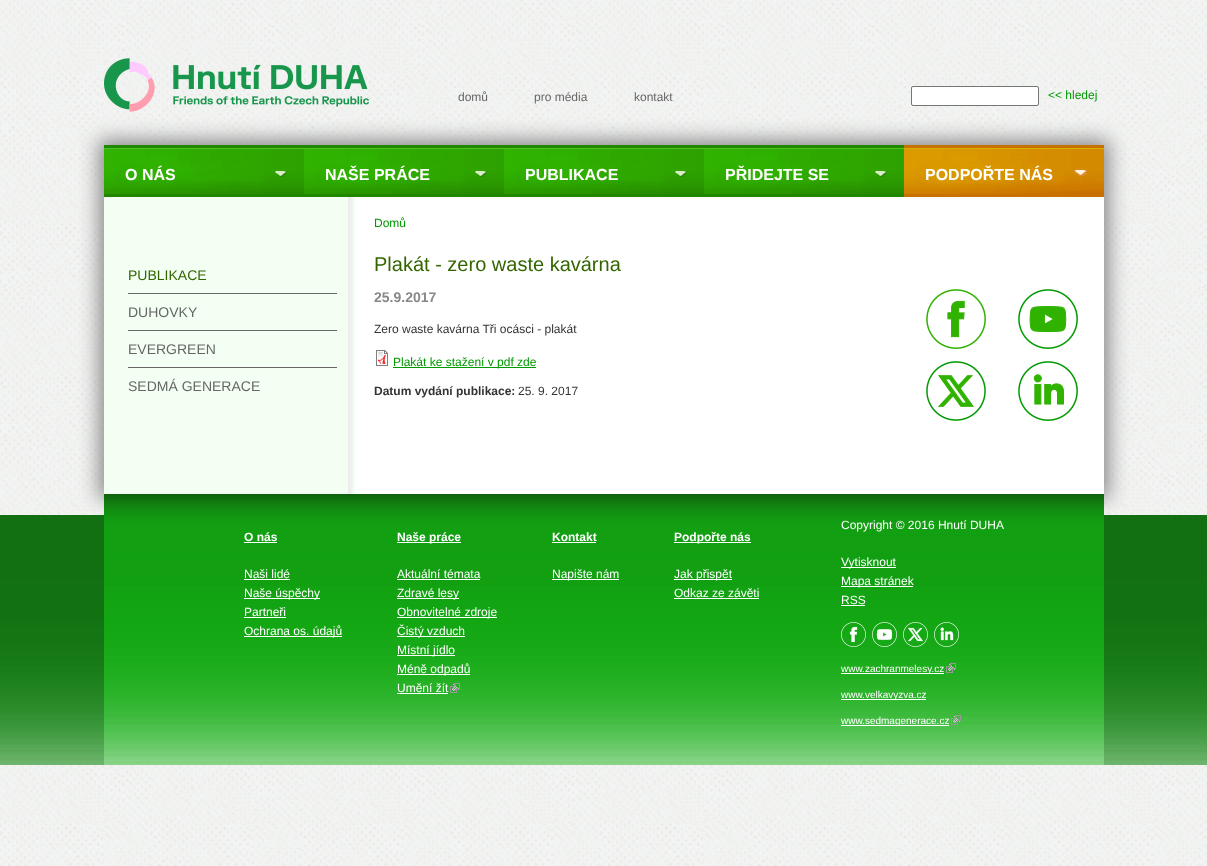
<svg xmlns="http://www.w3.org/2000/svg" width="1207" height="866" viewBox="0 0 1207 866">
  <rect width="100%" height="100%" fill="#fff"/>
  <image x="0" y="0" width="1207" height="866" href="img/1.png"/>
  <path d="M99 140h1010v359H99z" fill="#888" filter="blur(10px)"/>
  <image x="104" y="58" width="265" height="54" href="img/2.png"/>
  <rect x="911.5" y="86.5" width="127" height="19" rx="1.5" fill="#fff" stroke="#767676"/>
  <path d="M355 197h749v297H355z" fill="#fff"/>
  <image x="104" y="197" width="251" height="297" href="img/3.png"/>
  <image x="104" y="145" width="200" height="52" href="img/4.png"/>
  <image x="304" y="145" width="200" height="52" href="img/4.png"/>
  <image x="504" y="145" width="200" height="52" href="img/4.png"/>
  <image x="704" y="145" width="200" height="52" href="img/4.png"/>
  <image x="904" y="145" width="200" height="52" href="img/5.png"/>
  <path d="M128 293h209v1H128z" fill="#666"/>
  <path d="M128 330h209v1H128z" fill="#666"/>
  <path d="M128 367h209v1H128z" fill="#666"/>
  <image x="376" y="350" width="12" height="16" href="img/6.png"/>
  <path d="M393 367h143v1H393z" fill="#090"/>
  <image x="926" y="289" width="60" height="60" href="img/7.png"/>
  <image x="1018" y="289" width="60" height="60" href="img/8.png"/>
  <image x="926" y="361" width="60" height="60" href="img/9.png"/>
  <image x="1018" y="361" width="60" height="60" href="img/10.png"/>
  <image x="0" y="515" width="1207" height="250" href="img/11.png"/>
  <image x="104" y="494" width="1000" height="271" href="img/12.png"/>
  <path d="M244 542h33v1H244z" fill="#fff"/>
  <path d="M244 579h46v1H244z" fill="#fff"/>
  <path d="M244 598h76v1H244z" fill="#fff"/>
  <path d="M244 617h42v1H244z" fill="#fff"/>
  <path d="M244 636h98v1H244z" fill="#fff"/>
  <path d="M397 542h64v1H397z" fill="#fff"/>
  <path d="M397 579h83v1H397z" fill="#fff"/>
  <path d="M397 598h62v1H397z" fill="#fff"/>
  <path d="M397 617h100v1H397z" fill="#fff"/>
  <path d="M397 636h68v1H397z" fill="#fff"/>
  <path d="M397 655h58v1H397z" fill="#fff"/>
  <path d="M397 674h73v1H397z" fill="#fff"/>
  <path d="M397 693h51v1H397z" fill="#fff"/>
  <image x="450" y="683" width="10" height="10" href="img/13.png"/>
  <path d="M552 542h44v1H552z" fill="#fff"/>
  <path d="M552 579h67v1H552z" fill="#fff"/>
  <path d="M674 542h77v1H674z" fill="#fff"/>
  <path d="M674 579h58v1H674z" fill="#fff"/>
  <path d="M674 598h85v1H674z" fill="#fff"/>
  <path d="M841 567h55v1H841z" fill="#fff"/>
  <path d="M841 586h72v1H841z" fill="#fff"/>
  <path d="M841 605h24v1H841z" fill="#fff"/>
  <image x="841" y="622" width="25" height="25" href="img/14.png"/>
  <image x="872" y="622" width="25" height="25" href="img/15.png"/>
  <image x="903" y="622" width="25" height="25" href="img/16.png"/>
  <image x="934" y="622" width="25" height="25" href="img/17.png"/>
  <path d="M841 673h103v1H841z" fill="#fff"/>
  <image x="946" y="663" width="10" height="10" href="img/18.png"/>
  <path d="M841 699h85v1H841z" fill="#fff"/>
  <path d="M841 725h108v1H841z" fill="#fff"/>
  <image x="951" y="715" width="10" height="10" href="img/19.png"/>
  <g font-family="Liberation Sans" font-size="12" fill="#666">
    <text x="458" y="101">domů</text>
    <text x="534" y="101">pro média</text>
    <text x="634" y="101">kontakt</text>
  </g>
  <text x="1048" y="99" font-family="Liberation Sans" font-size="12" fill="#090">&lt;&lt; hledej</text>
  <g font-family="Liberation Sans" font-size="16" font-weight="bold" fill="#fff">
    <text x="125" y="180">O NÁS</text>
    <text x="325" y="180">NAŠE PRÁCE</text>
    <text x="525" y="180">PUBLIKACE</text>
    <text x="725" y="180">PŘIDEJTE SE</text>
    <text x="925" y="180">PODPOŘTE NÁS</text>
  </g>
  <text x="128" y="280" font-family="Liberation Sans" font-size="14" fill="#360">PUBLIKACE</text>
  <g font-family="Liberation Sans" font-size="14" fill="#666">
    <text x="128" y="317">DUHOVKY</text>
    <text x="128" y="354">EVERGREEN</text>
    <text x="128" y="391">SEDMÁ GENERACE</text>
  </g>
  <text x="374" y="227" font-family="Liberation Sans" font-size="12" fill="#090">Domů</text>
  <text x="374" y="271" font-family="Liberation Sans" font-size="20" fill="#360">Plakát - zero waste kavárna</text>
  <text x="374" y="302" font-family="Liberation Sans" font-size="14" font-weight="bold" fill="#888">25.9.2017</text>
  <text x="374" y="333" font-family="Liberation Sans" font-size="12" fill="#333">Zero waste kavárna Tři ocásci - plakát</text>
  <text x="393" y="366" font-family="Liberation Sans" font-size="12" fill="#090">Plakát ke stažení v pdf zde</text>
  <text x="374" y="395" font-family="Liberation Sans" font-size="12" font-weight="bold" fill="#333">Datum vydání publikace:</text>
  <text x="518" y="395" font-family="Liberation Sans" font-size="12" fill="#333">25. 9. 2017</text>
  <text x="244" y="541" font-family="Liberation Sans" font-size="12" font-weight="bold" fill="#fff">O nás</text>
  <g font-family="Liberation Sans" font-size="12" fill="#fff">
    <text x="244" y="578">Naši lidé</text>
    <text x="244" y="597">Naše úspěchy</text>
    <text x="244" y="616">Partneři</text>
    <text x="244" y="635">Ochrana os. údajů</text>
  </g>
  <text x="397" y="541" font-family="Liberation Sans" font-size="12" font-weight="bold" fill="#fff">Naše práce</text>
  <g font-family="Liberation Sans" font-size="12" fill="#fff">
    <text x="397" y="578">Aktuální témata</text>
    <text x="397" y="597">Zdravé lesy</text>
    <text x="397" y="616">Obnovitelné zdroje</text>
    <text x="397" y="635">Čistý vzduch</text>
    <text x="397" y="654">Místní jídlo</text>
    <text x="397" y="673">Méně odpadů</text>
    <text x="397" y="692">Umění žít</text>
  </g>
  <text x="552" y="541" font-family="Liberation Sans" font-size="12" font-weight="bold" fill="#fff">Kontakt</text>
  <text x="552" y="578" font-family="Liberation Sans" font-size="12" fill="#fff">Napište nám</text>
  <text x="674" y="541" font-family="Liberation Sans" font-size="12" font-weight="bold" fill="#fff">Podpořte nás</text>
  <g font-family="Liberation Sans" font-size="12" fill="#fff">
    <text x="674" y="578">Jak přispět</text>
    <text x="674" y="597">Odkaz ze závěti</text>
    <text x="841" y="529">Copyright © 2016 Hnutí DUHA</text>
    <text x="841" y="566">Vytisknout</text>
    <text x="841" y="585">Mapa stránek</text>
    <text x="841" y="604">RSS</text>
  </g>
  <g font-family="Liberation Sans" font-size="10" fill="#fff">
    <text x="841" y="672">www.zachranmelesy.cz</text>
    <text x="841" y="698">www.velkavyzva.cz</text>
    <text x="841" y="724">www.sedmagenerace.cz</text>
  </g>
</svg>
